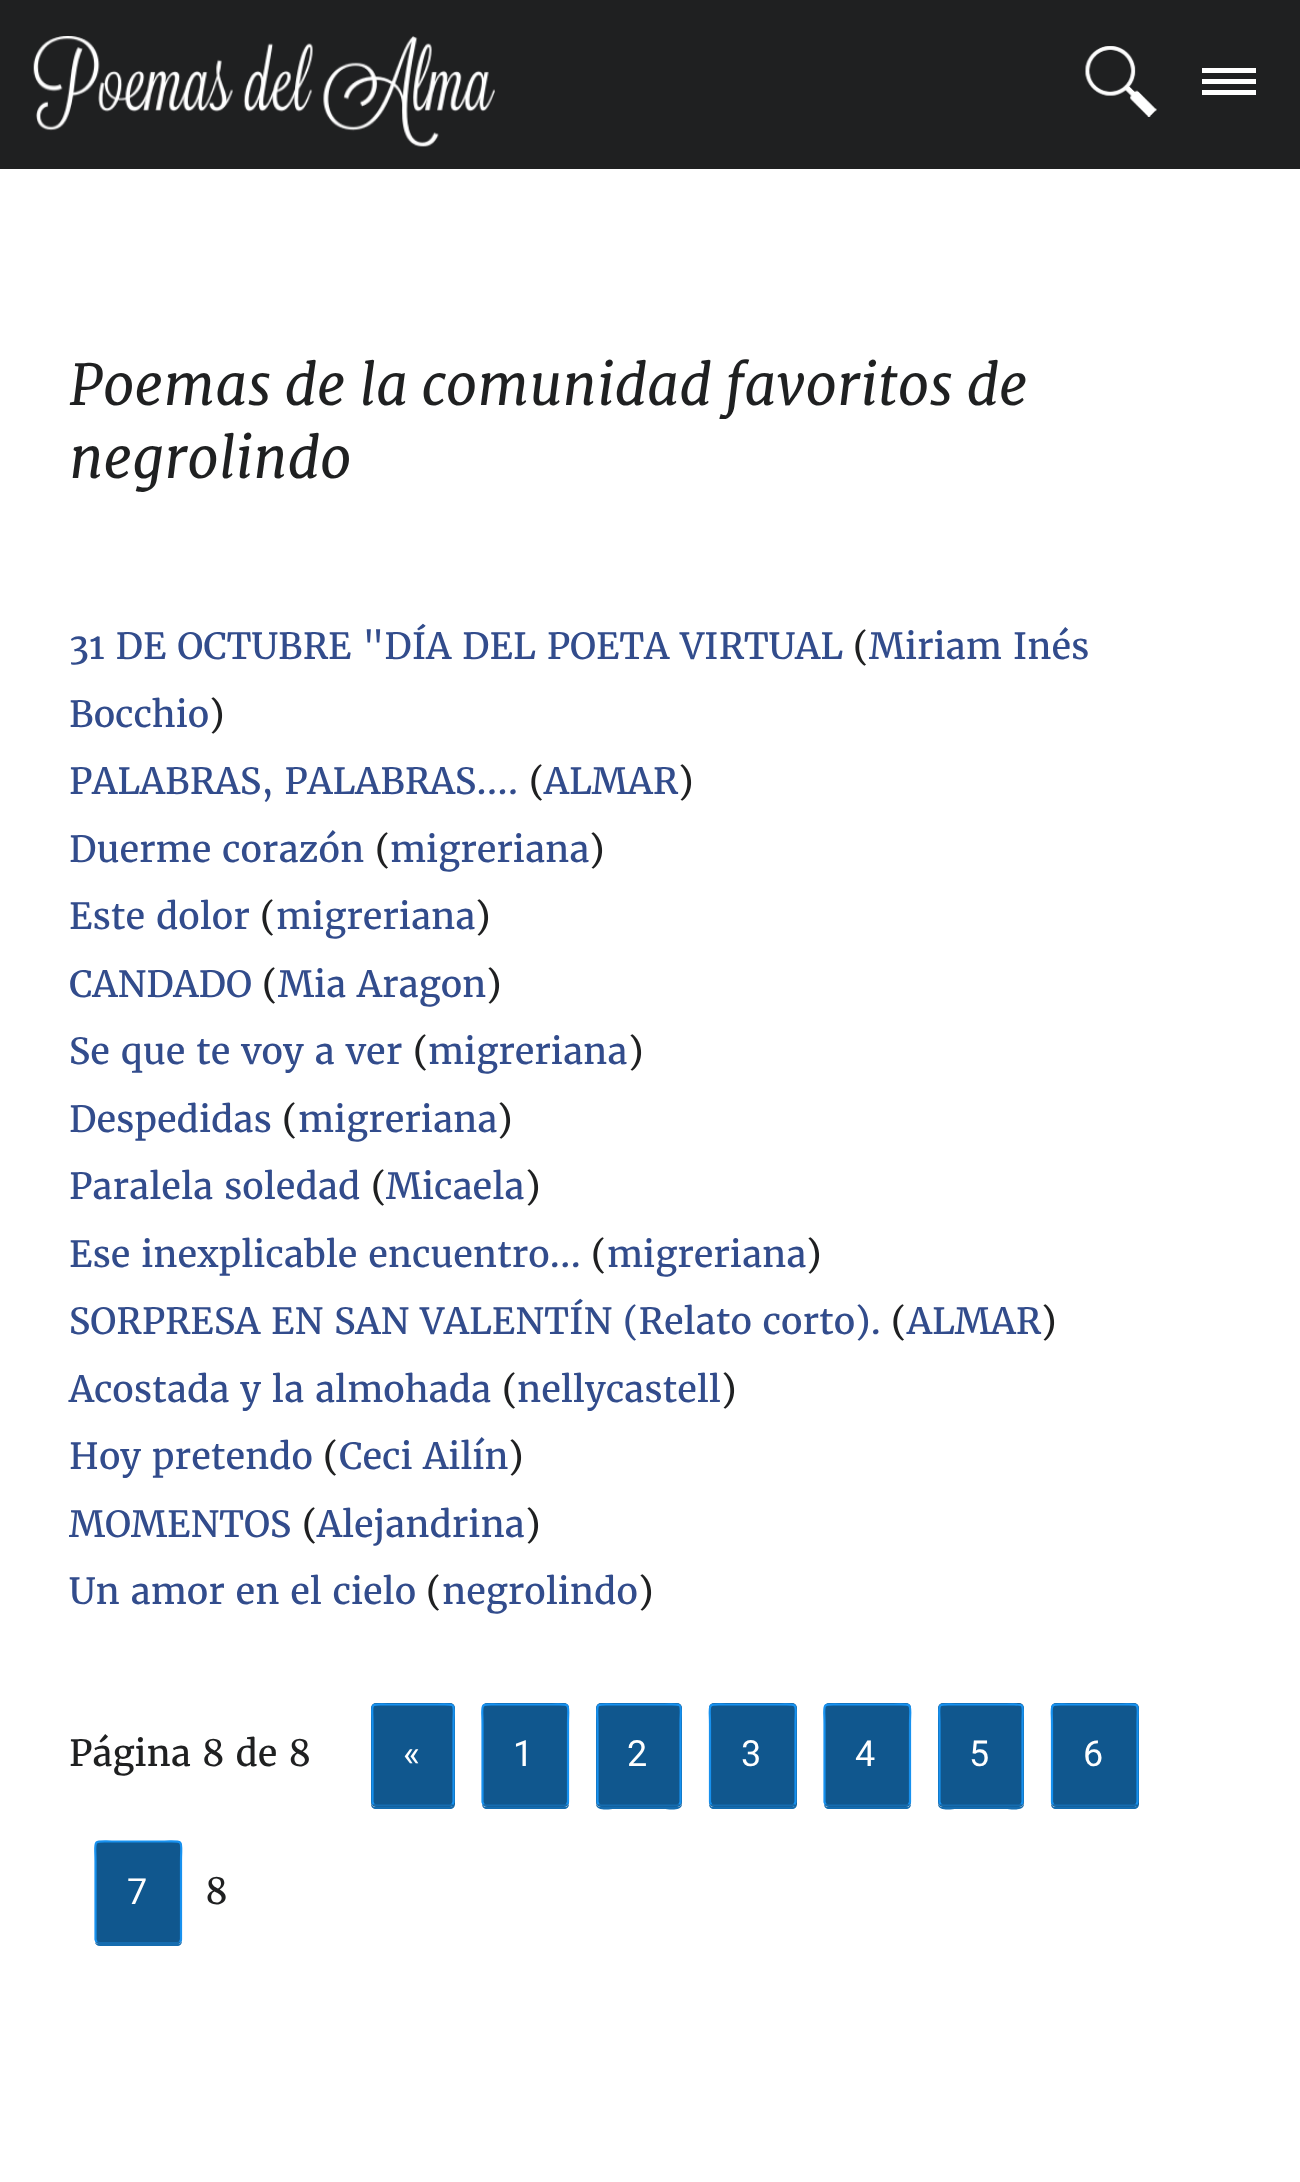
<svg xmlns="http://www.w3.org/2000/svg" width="1300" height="2182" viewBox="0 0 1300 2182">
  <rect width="100%" height="100%" fill="#1f2021"/>
  <image x="33" y="36" width="462" height="111" href="img/1.png"/>
  <image x="1085" y="46" width="72" height="71" href="img/2.png"/>
  <path d="M1202 79h54v5H1202z" fill="#fff"/>
  <path d="M1202 68h54v5H1202z" fill="#fff"/>
  <path d="M1202 90h54v5H1202z" fill="#fff"/>
  <path d="M0 169h1300v2013H0z" fill="#fff"/>
  <path d="M371 1709V1804C371 1807 373 1809 376 1809H450C453 1809 455 1807 455 1804V1711L454 1709V1802C454 1805 452 1807 450 1807H376C373 1807 371 1805 371 1802Z" fill="#156caf"/>
  <rect x="371" y="1703" width="84" height="104" rx="5" fill="#10578e"/>
  <path d="M452.5 1804.5L450.5 1805.5H375.5L373.5 1804.5" fill="none" stroke="#156caf" stroke-width="2.2"/>
  <path d="M373.5 1804.5L372.5 1802V1723.5C372.5 1702 368.5 1704.5 388 1704.5H437.5C457.5 1704.5 453.5 1702 453.5 1723.5V1802L452.5 1804.5" fill="none" stroke="#1791ef" stroke-width="2.2"/>
  <path d="M482 1804C482 1807 484 1809 487 1809H564C567 1809 569 1807 569 1804C568 1805 567 1807 565 1807H486C484 1807 483 1806 482 1804Z" fill="#156caf"/>
  <rect x="482" y="1703" width="87" height="104" rx="5" fill="#10578e"/>
  <path d="M567 1804.5L565 1805.5H485.5L483.5 1804.5" fill="none" stroke="#156caf" stroke-width="2.2"/>
  <path d="M483.5 1804.5L482.5 1802V1723.5C482.5 1702 478.5 1704.5 499 1704.5H551.5C572 1704.5 568 1702 568 1723.5V1802L567 1804.5" fill="none" stroke="#1791ef" stroke-width="2.2"/>
  <path d="M596 1709V1804C596 1812 611 1809 614 1809H664C667 1809 682 1812 682 1804V1709V1802C682 1805 680 1807 677 1807H601C598 1807 596 1805 596 1802Z" fill="#156caf"/>
  <rect x="596" y="1703" width="86" height="104" rx="5" fill="#10578e"/>
  <path d="M679.5 1804.5L677.5 1805.5H600.5L598.5 1804.5" fill="none" stroke="#156caf" stroke-width="2.2"/>
  <path d="M598.5 1804.5L597.5 1802V1723.5C597.5 1702 593.5 1704.5 613.5 1704.5H664.5C684.5 1704.5 680.5 1702 680.5 1723.5V1802L679.5 1804.5" fill="none" stroke="#1791ef" stroke-width="2.2"/>
  <path d="M709 1804C709 1807 711 1809 714 1809H792C795 1809 797 1807 797 1804V1711L796 1709V1802C796 1805 794 1807 792 1807H713C711 1807 710 1805 709 1804Z" fill="#156caf"/>
  <rect x="709" y="1703" width="88" height="104" rx="5" fill="#10578e"/>
  <path d="M794.5 1804.5L792.5 1805.5H713L711 1804.5" fill="none" stroke="#156caf" stroke-width="2.2"/>
  <path d="M711 1804.5L710 1802V1723.5C710 1702 706 1704.5 726.5 1704.5H779C799.5 1704.5 795.5 1702 795.5 1723.5V1802L794.5 1804.5" fill="none" stroke="#1791ef" stroke-width="2.2"/>
  <path d="M824 1804C824 1807 826 1809 829 1809H906C909 1809 911 1807 911 1804C910 1805 909 1807 907 1807H828C826 1807 825 1806 824 1804Z" fill="#156caf"/>
  <rect x="824" y="1703" width="87" height="104" rx="5" fill="#10578e"/>
  <path d="M909 1804.5L907 1805.5H827.5L825.5 1804.5" fill="none" stroke="#156caf" stroke-width="2.2"/>
  <path d="M825.5 1804.5L824.5 1802V1723.5C824.5 1702 820.5 1704.5 841 1704.5H893.5C914 1704.5 910 1702 910 1723.5V1802L909 1804.5" fill="none" stroke="#1791ef" stroke-width="2.2"/>
  <path d="M938 1709V1804C938 1812 953 1809 956 1809H1006C1009 1809 1024 1812 1024 1804V1709V1802C1024 1805 1022 1807 1019 1807H943C940 1807 938 1805 938 1802Z" fill="#156caf"/>
  <rect x="938" y="1703" width="86" height="104" rx="5" fill="#10578e"/>
  <path d="M1021.5 1804.5L1019.5 1805.5H942.5L940.5 1804.5" fill="none" stroke="#156caf" stroke-width="2.2"/>
  <path d="M940.5 1804.5L939.5 1802V1723.5C939.5 1702 935.5 1704.5 955.5 1704.5H1006.5C1026.5 1704.5 1022.5 1702 1022.5 1723.5V1802L1021.5 1804.5" fill="none" stroke="#1791ef" stroke-width="2.2"/>
  <path d="M1051 1804C1051 1807 1053 1809 1056 1809H1134C1137 1809 1139 1807 1139 1804V1711L1138 1709V1802C1138 1805 1136 1807 1134 1807H1055C1053 1807 1052 1805 1051 1804Z" fill="#156caf"/>
  <rect x="1051" y="1703" width="88" height="104" rx="5" fill="#10578e"/>
  <path d="M1136.5 1804.5L1134.5 1805.5H1055L1053 1804.5" fill="none" stroke="#156caf" stroke-width="2.2"/>
  <path d="M1053 1804.5L1052 1802V1723.5C1052 1702 1048 1704.5 1068.5 1704.5H1121C1141.5 1704.5 1137.5 1702 1137.5 1723.5V1802L1136.5 1804.5" fill="none" stroke="#1791ef" stroke-width="2.2"/>
  <path d="M95 1942C95 1944 97 1946 100 1946H177C180 1946 182 1944 182 1941C181 1943 180 1944 178 1944H99C97 1944 96 1943 95 1942Z" fill="#156caf"/>
  <rect x="95" y="1841" width="87" height="103" rx="5" fill="#10578e"/>
  <path d="M180 1942L178 1943H98.5L96.5 1942" fill="none" stroke="#156caf" stroke-width="2.2"/>
  <path d="M96.5 1942L95.5 1939.5V1861C95.5 1839 91.5 1841.5 112 1841.5H164.5C185 1841.5 181 1839 181 1861V1939.5L180 1942" fill="none" stroke="#1791ef" stroke-width="2.2"/>
  <g font-family="Merriweather" font-size="56.25" font-style="italic" fill="#1f2021">
    <text x="69" y="405">Poemas de la comunidad favoritos de</text>
    <text x="69" y="478">negrolindo</text>
  </g>
  <text x="69" y="659" font-family="Merriweather" font-size="36" fill="#324c8c">31 DE OCTUBRE "DÍA DEL POETA VIRTUAL</text>
  <text x="853" y="659" font-family="Merriweather" font-size="36" fill="#1f2021">(</text>
  <g font-family="Merriweather" font-size="36" fill="#324c8c">
    <text x="869" y="659">Miriam Inés</text>
    <text x="69" y="727">Bocchio</text>
  </g>
  <text x="209" y="727" font-family="Merriweather" font-size="36" fill="#1f2021">)</text>
  <text x="69" y="794" font-family="Merriweather" font-size="36" fill="#324c8c">PALABRAS, PALABRAS....</text>
  <text x="529" y="794" font-family="Merriweather" font-size="36" fill="#1f2021">(</text>
  <text x="544" y="794" font-family="Merriweather" font-size="36" fill="#324c8c">ALMAR</text>
  <text x="678" y="794" font-family="Merriweather" font-size="36" fill="#1f2021">)</text>
  <text x="69" y="862" font-family="Merriweather" font-size="36" fill="#324c8c">Duerme corazón</text>
  <text x="375" y="862" font-family="Merriweather" font-size="36" fill="#1f2021">(</text>
  <text x="390" y="862" font-family="Merriweather" font-size="36" fill="#324c8c">migreriana</text>
  <text x="589" y="862" font-family="Merriweather" font-size="36" fill="#1f2021">)</text>
  <text x="69" y="929" font-family="Merriweather" font-size="36" fill="#324c8c">Este dolor</text>
  <text x="260" y="929" font-family="Merriweather" font-size="36" fill="#1f2021">(</text>
  <text x="276" y="929" font-family="Merriweather" font-size="36" fill="#324c8c">migreriana</text>
  <text x="475" y="929" font-family="Merriweather" font-size="36" fill="#1f2021">)</text>
  <text x="69" y="997" font-family="Merriweather" font-size="36" fill="#324c8c">CANDADO</text>
  <text x="262" y="997" font-family="Merriweather" font-size="36" fill="#1f2021">(</text>
  <text x="278" y="997" font-family="Merriweather" font-size="36" fill="#324c8c">Mia Aragon</text>
  <text x="486" y="997" font-family="Merriweather" font-size="36" fill="#1f2021">)</text>
  <text x="69" y="1064" font-family="Merriweather" font-size="36" fill="#324c8c">Se que te voy a ver</text>
  <text x="413" y="1064" font-family="Merriweather" font-size="36" fill="#1f2021">(</text>
  <text x="428" y="1064" font-family="Merriweather" font-size="36" fill="#324c8c">migreriana</text>
  <text x="628" y="1064" font-family="Merriweather" font-size="36" fill="#1f2021">)</text>
  <text x="69" y="1132" font-family="Merriweather" font-size="36" fill="#324c8c">Despedidas</text>
  <text x="282" y="1132" font-family="Merriweather" font-size="36" fill="#1f2021">(</text>
  <text x="298" y="1132" font-family="Merriweather" font-size="36" fill="#324c8c">migreriana</text>
  <text x="497" y="1132" font-family="Merriweather" font-size="36" fill="#1f2021">)</text>
  <text x="69" y="1199" font-family="Merriweather" font-size="36" fill="#324c8c">Paralela soledad</text>
  <text x="371" y="1199" font-family="Merriweather" font-size="36" fill="#1f2021">(</text>
  <text x="386" y="1199" font-family="Merriweather" font-size="36" fill="#324c8c">Micaela</text>
  <text x="525" y="1199" font-family="Merriweather" font-size="36" fill="#1f2021">)</text>
  <text x="69" y="1267" font-family="Merriweather" font-size="36" fill="#324c8c">Ese inexplicable encuentro...</text>
  <text x="591" y="1267" font-family="Merriweather" font-size="36" fill="#1f2021">(</text>
  <text x="607" y="1267" font-family="Merriweather" font-size="36" fill="#324c8c">migreriana</text>
  <text x="806" y="1267" font-family="Merriweather" font-size="36" fill="#1f2021">)</text>
  <text x="69" y="1334" font-family="Merriweather" font-size="36" fill="#324c8c">SORPRESA EN SAN VALENTÍN (Relato corto).</text>
  <text x="891" y="1334" font-family="Merriweather" font-size="36" fill="#1f2021">(</text>
  <text x="907" y="1334" font-family="Merriweather" font-size="36" fill="#324c8c">ALMAR</text>
  <text x="1041" y="1334" font-family="Merriweather" font-size="36" fill="#1f2021">)</text>
  <text x="69" y="1402" font-family="Merriweather" font-size="36" fill="#324c8c">Acostada y la almohada</text>
  <text x="502" y="1402" font-family="Merriweather" font-size="36" fill="#1f2021">(</text>
  <text x="517" y="1402" font-family="Merriweather" font-size="36" fill="#324c8c">nellycastell</text>
  <text x="721" y="1402" font-family="Merriweather" font-size="36" fill="#1f2021">)</text>
  <text x="69" y="1469" font-family="Merriweather" font-size="36" fill="#324c8c">Hoy pretendo</text>
  <text x="323" y="1469" font-family="Merriweather" font-size="36" fill="#1f2021">(</text>
  <text x="339" y="1469" font-family="Merriweather" font-size="36" fill="#324c8c">Ceci Ailín</text>
  <text x="508" y="1469" font-family="Merriweather" font-size="36" fill="#1f2021">)</text>
  <text x="69" y="1537" font-family="Merriweather" font-size="36" fill="#324c8c">MOMENTOS</text>
  <text x="302" y="1537" font-family="Merriweather" font-size="36" fill="#1f2021">(</text>
  <text x="317" y="1537" font-family="Merriweather" font-size="36" fill="#324c8c">Alejandrina</text>
  <text x="525" y="1537" font-family="Merriweather" font-size="36" fill="#1f2021">)</text>
  <text x="69" y="1604" font-family="Merriweather" font-size="36" fill="#324c8c">Un amor en el cielo</text>
  <text x="426" y="1604" font-family="Merriweather" font-size="36" fill="#1f2021">(</text>
  <text x="442" y="1604" font-family="Merriweather" font-size="36" fill="#324c8c">negrolindo</text>
  <g font-family="Merriweather" font-size="36" fill="#1f2021">
    <text x="638" y="1604">)</text>
    <text x="69" y="1766">Página 8 de 8</text>
  </g>
  <g font-family="Roboto" font-size="36" letter-spacing="4" fill="#fff">
    <text x="403" y="1766">«</text>
    <text x="513" y="1766">1</text>
    <text x="627" y="1766">2</text>
    <text x="741" y="1766">3</text>
    <text x="855" y="1766">4</text>
    <text x="969" y="1766">5</text>
    <text x="1083" y="1766">6</text>
    <text x="127" y="1904">7</text>
  </g>
  <text x="205" y="1904" font-family="Merriweather" font-size="36" fill="#1f2021">8</text>
</svg>
